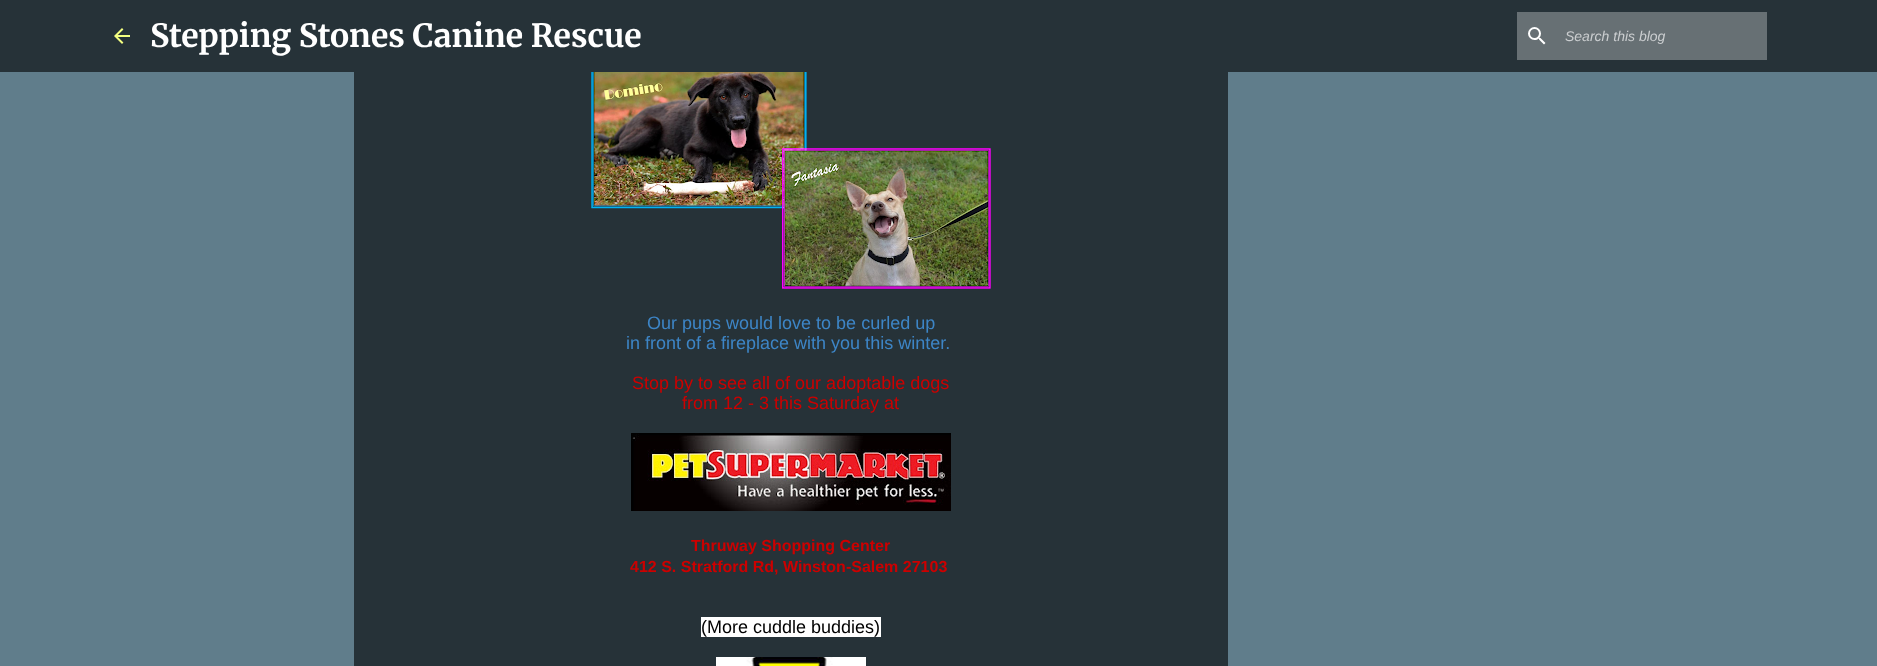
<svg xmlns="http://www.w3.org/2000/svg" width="1877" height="666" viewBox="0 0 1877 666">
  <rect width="100%" height="100%" fill="#607d8b"/>
  <path d="M0 0h1877v72H0z" fill="#263238"/>
  <image x="114" y="28" width="16" height="16" href="img/1.png"/>
  <path d="M1517 12h250v48H1517z" fill="#677074"/>
  <image x="1528" y="27" width="18" height="18" href="img/2.png"/>
  <path d="M354 72h874v594H354z" fill="#263238"/>
  <image x="591" y="72" width="400" height="217" href="img/3.png"/>
  <image x="631" y="433" width="320" height="78" href="img/4.png"/>
  <path d="M701 617h180v20H701z" fill="#fff"/>
  <image x="716" y="657" width="150" height="9" href="img/5.png"/>
  <text x="150" y="47" font-family="Merriweather" font-size="32" font-weight="bold" fill="#fff">Stepping Stones Canine Rescue</text>
  <text x="1565" y="41" font-family="Liberation Sans" font-size="14" font-style="italic" fill="#cbced0">Search this blog</text>
  <g font-family="Liberation Sans" font-size="18" fill="#3d85c6">
    <text x="647" y="329">Our pups would love to be curled up</text>
    <text x="626" y="349">in front of a fireplace with you this winter.</text>
  </g>
  <g font-family="Liberation Sans" font-size="18" fill="#c00">
    <text x="632" y="389">Stop by to see all of our adoptable dogs</text>
    <text x="682" y="409">from 12 - 3 this Saturday at</text>
  </g>
  <g font-family="Liberation Sans" font-size="16" font-weight="bold" fill="#c00">
    <text x="691" y="551">Thruway Shopping Center</text>
    <text x="630" y="572">412 S. Stratford Rd, Winston-Salem 27103</text>
  </g>
  <text x="701" y="633" font-family="Liberation Sans" font-size="18" fill="#000">(More cuddle buddies)</text>
</svg>
